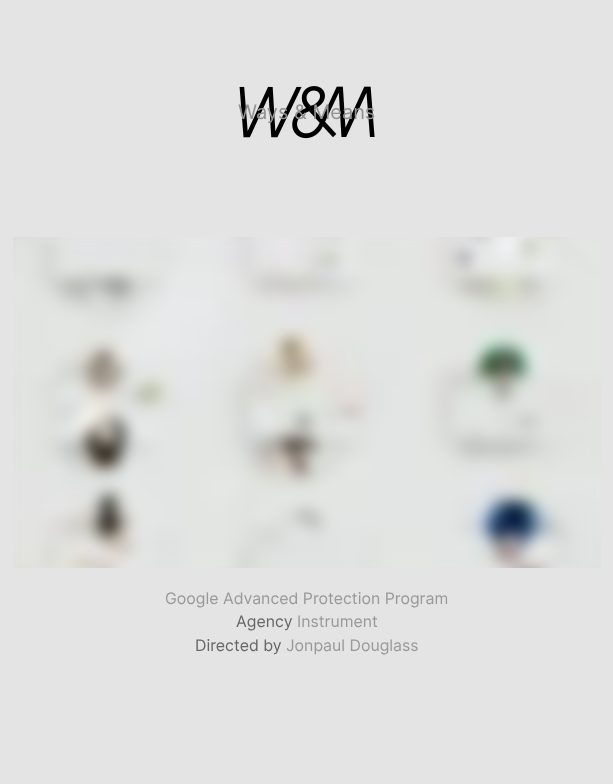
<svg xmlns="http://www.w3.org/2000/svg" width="613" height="784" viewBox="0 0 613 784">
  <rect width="100%" height="100%" fill="#e4e4e4"/>
  <image x="239" y="86" width="136" height="53" href="img/1.png"/>
  <image x="13" y="237" width="588" height="331" href="img/2.png"/>
  <text x="238" y="119" font-family="Inter" font-size="20" fill="#919191">Ways &amp; Means</text>
  <text x="165" y="604" font-family="Inter" font-size="15.9" fill="#999">Google Advanced Protection Program</text>
  <text x="236" y="627" font-family="Inter" font-size="15.9" fill="#666">Agency</text>
  <text x="297" y="627" font-family="Inter" font-size="15.9" fill="#999">Instrument</text>
  <text x="195" y="651" font-family="Inter" font-size="15.9" fill="#666">Directed by</text>
  <text x="286" y="651" font-family="Inter" font-size="15.9" fill="#999">Jonpaul Douglass</text>
</svg>
